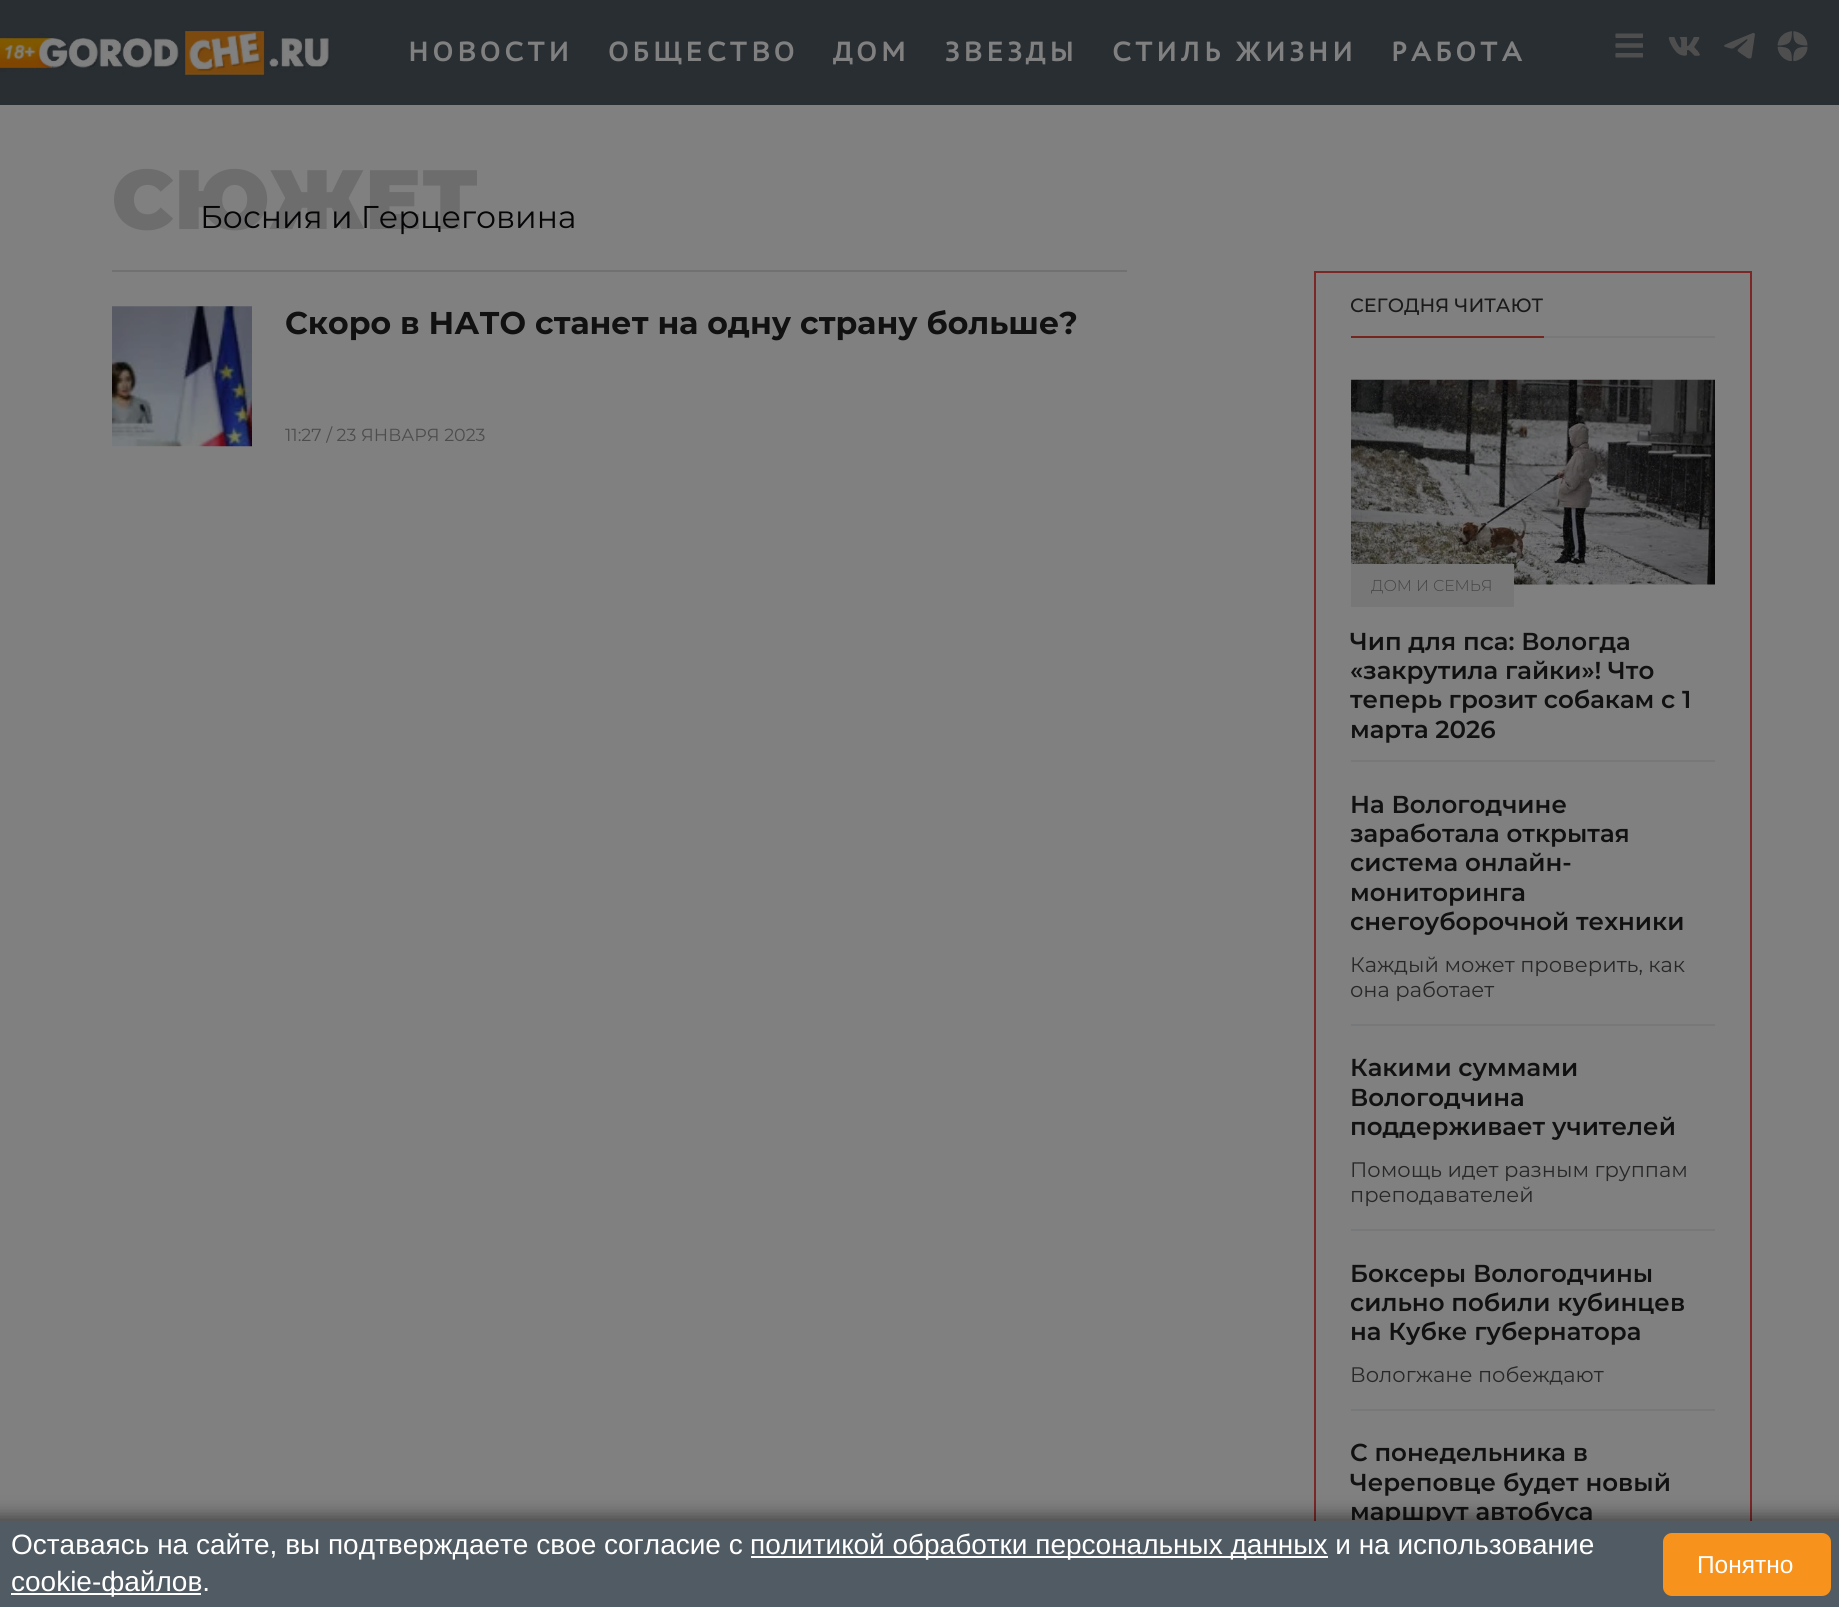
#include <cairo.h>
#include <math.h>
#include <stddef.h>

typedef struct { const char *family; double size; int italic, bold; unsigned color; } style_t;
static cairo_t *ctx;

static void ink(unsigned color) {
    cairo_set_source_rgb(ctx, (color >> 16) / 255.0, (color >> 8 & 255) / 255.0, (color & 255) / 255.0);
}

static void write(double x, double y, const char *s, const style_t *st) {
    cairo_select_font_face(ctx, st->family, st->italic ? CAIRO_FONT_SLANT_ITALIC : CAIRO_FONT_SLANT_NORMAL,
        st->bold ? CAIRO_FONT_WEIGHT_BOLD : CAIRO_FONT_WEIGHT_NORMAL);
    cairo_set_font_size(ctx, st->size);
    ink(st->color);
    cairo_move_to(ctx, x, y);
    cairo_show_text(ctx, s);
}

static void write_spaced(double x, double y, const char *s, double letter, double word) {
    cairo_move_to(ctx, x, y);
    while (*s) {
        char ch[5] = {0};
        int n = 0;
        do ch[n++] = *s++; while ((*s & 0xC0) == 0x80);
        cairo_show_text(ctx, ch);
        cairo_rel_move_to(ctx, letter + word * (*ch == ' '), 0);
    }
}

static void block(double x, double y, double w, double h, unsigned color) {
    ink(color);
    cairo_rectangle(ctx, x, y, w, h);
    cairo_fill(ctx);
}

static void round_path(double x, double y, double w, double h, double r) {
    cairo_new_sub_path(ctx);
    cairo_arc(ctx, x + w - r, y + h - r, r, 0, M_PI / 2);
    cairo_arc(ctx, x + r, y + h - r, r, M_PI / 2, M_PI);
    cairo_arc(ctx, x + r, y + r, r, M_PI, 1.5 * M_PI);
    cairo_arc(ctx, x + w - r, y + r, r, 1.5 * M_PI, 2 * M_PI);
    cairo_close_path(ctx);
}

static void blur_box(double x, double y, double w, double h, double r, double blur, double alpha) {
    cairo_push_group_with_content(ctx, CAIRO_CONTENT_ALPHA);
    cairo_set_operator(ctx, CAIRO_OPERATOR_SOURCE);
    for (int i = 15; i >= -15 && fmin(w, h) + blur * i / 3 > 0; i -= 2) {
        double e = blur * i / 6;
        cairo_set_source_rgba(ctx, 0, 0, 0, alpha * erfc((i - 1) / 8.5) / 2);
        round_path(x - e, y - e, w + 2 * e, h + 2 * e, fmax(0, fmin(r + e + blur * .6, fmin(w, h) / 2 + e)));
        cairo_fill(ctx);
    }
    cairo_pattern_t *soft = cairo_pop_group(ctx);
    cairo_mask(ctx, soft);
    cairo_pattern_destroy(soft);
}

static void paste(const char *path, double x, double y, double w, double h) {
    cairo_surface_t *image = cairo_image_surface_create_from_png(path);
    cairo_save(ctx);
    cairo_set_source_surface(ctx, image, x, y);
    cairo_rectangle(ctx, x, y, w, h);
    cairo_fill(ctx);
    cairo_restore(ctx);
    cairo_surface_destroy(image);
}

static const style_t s1 = {"Montserrat Black", 84, 0, 0, 0x6d6d6d};
static const style_t s2 = {"Montserrat", 31.5, 0, 0, 0x050508};
static const style_t s3 = {"Montserrat", 31.5, 0, 1, 0x111111};
static const style_t s4 = {"Montserrat", 17.5, 0, 0, 0x4d4d4d};
static const style_t s5 = {"Montserrat Medium", 19.25, 0, 0, 0x1a1a1a};
static const style_t s6 = {"Montserrat Light", 15.75, 0, 0, 0x444444};
static const style_t s7 = {"Montserrat SemiBold", 24.5, 0, 0, 0x111111};
static const style_t s8 = {"Montserrat", 21, 0, 0, 0x282828};
static const style_t s9 = {"Liberation Sans", 28, 0, 0, 0xffffff};
static const style_t s10 = {"Liberation Sans", 24.5, 0, 0, 0xffffff};

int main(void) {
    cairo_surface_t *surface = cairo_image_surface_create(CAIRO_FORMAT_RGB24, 1839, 1607);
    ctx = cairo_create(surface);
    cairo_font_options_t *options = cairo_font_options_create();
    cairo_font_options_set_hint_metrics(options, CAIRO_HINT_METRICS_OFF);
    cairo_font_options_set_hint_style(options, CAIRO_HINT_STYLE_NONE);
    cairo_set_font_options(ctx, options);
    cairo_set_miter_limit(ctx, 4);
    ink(0x808080);
    cairo_paint(ctx);
    block(0, 0, 1839, 105, 0x292e32);
    paste("pic1.png", 0, 30, 330, 46);
    cairo_select_font_face(ctx, "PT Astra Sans", CAIRO_FONT_SLANT_NORMAL, CAIRO_FONT_WEIGHT_BOLD);
    cairo_set_font_size(ctx, 28);
    ink(0x808080);
    write_spaced(408, 61, "НОВОСТИ", 4.25, 0);
    write_spaced(608, 61, "ОБЩЕСТВО", 4.25, 0);
    write_spaced(833, 61, "ДОМ", 4.25, 0);
    write_spaced(945, 61, "ЗВЕЗДЫ", 4.25, 0);
    write_spaced(1112, 61, "СТИЛЬ ЖИЗНИ", 4.25, 0);
    write_spaced(1391, 61, "РАБОТА", 4.25, 0);
    paste("pic2.png", 1615, 33, 28, 25);
    paste("pic3.png", 1668, 37, 32, 19);
    paste("pic4.png", 1724, 33, 31, 26);
    paste("pic5.png", 1777, 31, 31, 30);
    write(112, 229, "СЮЖЕТ", &s1);
    write(200, 228, "Босния и Герцеговина", &s2);
    block(112, 270, 1015, 2, 0x717171);
    paste("pic6.png", 112, 306, 140, 141);
    write(285, 334, "Скоро в НАТО станет на одну страну больше?", &s3);
    write(285, 441, "11:27 / 23 ЯНВАРЯ 2023", &s4);
    cairo_rectangle(ctx, 1315, 272, 436, 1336);
    ink(0x7b2726);
    cairo_stroke(ctx);
    block(1544, 336, 171, 2, 0x767879);
    block(1351, 336, 193, 2, 0x74261e);
    write(1350, 312, "СЕГОДНЯ ЧИТАЮТ", &s5);
    block(1351, 760, 364, 2, 0x767879);
    paste("pic7.png", 1351, 379, 364, 206);
    block(1351, 564, 163, 43, 0x777777);
    write(1371, 591, "ДОМ И СЕМЬЯ", &s6);
    write(1350, 650, "Чип для пса: Вологда", &s7);
    write(1350, 679, "«закрутила гайки»! Что", &s7);
    write(1350, 708, "теперь грозит собакам с 1", &s7);
    write(1350, 738, "марта 2026", &s7);
    block(1351, 1024, 364, 2, 0x767879);
    write(1350, 813, "На Вологодчине", &s7);
    write(1350, 842, "заработала открытая", &s7);
    write(1350, 871, "система онлайн-", &s7);
    write(1350, 901, "мониторинга", &s7);
    write(1350, 930, "снегоуборочной техники", &s7);
    write(1350, 972, "Каждый может проверить, как", &s8);
    write(1350, 997, "она работает", &s8);
    block(1351, 1229, 364, 2, 0x767879);
    write(1350, 1076, "Какими суммами", &s7);
    write(1350, 1106, "Вологодчина", &s7);
    write(1350, 1135, "поддерживает учителей", &s7);
    write(1350, 1177, "Помощь идет разным группам", &s8);
    write(1350, 1202, "преподавателей", &s8);
    block(1351, 1409, 364, 2, 0x767879);
    write(1350, 1282, "Боксеры Вологодчины", &s7);
    write(1350, 1311, "сильно побили кубинцев", &s7);
    write(1350, 1340, "на Кубке губернатора", &s7);
    write(1350, 1382, "Вологжане побеждают", &s8);
    write(1350, 1461, "С понедельника в", &s7);
    write(1350, 1491, "Череповце будет новый", &s7);
    write(1350, 1520, "маршрут автобуса", &s7);
    ink(0x000000);
    blur_box(-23, 1517, 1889, 88, 18, 9, 0.5);
    block(0, 1521, 1839, 86, 0x515b63);
    write(11, 1554, "Оставаясь на сайте, вы подтверждаете свое согласие с", &s9);
    block(751, 1556, 577, 2, 0xffffff);
    write(750, 1554, "политикой обработки персональных данных и на использование", &s9);
    block(11, 1593, 190, 2, 0xffffff);
    write(11, 1591, "cookie-файлов.", &s9);
    ink(0xf7931d);
    round_path(1663, 1533, 168, 63, 9);
    cairo_fill(ctx);
    write(1697, 1573, "Понятно", &s10);
    cairo_surface_write_to_png(surface, "screenshot.png");
    cairo_font_options_destroy(options);
    cairo_destroy(ctx);
    cairo_surface_destroy(surface);
    return 0;
}
